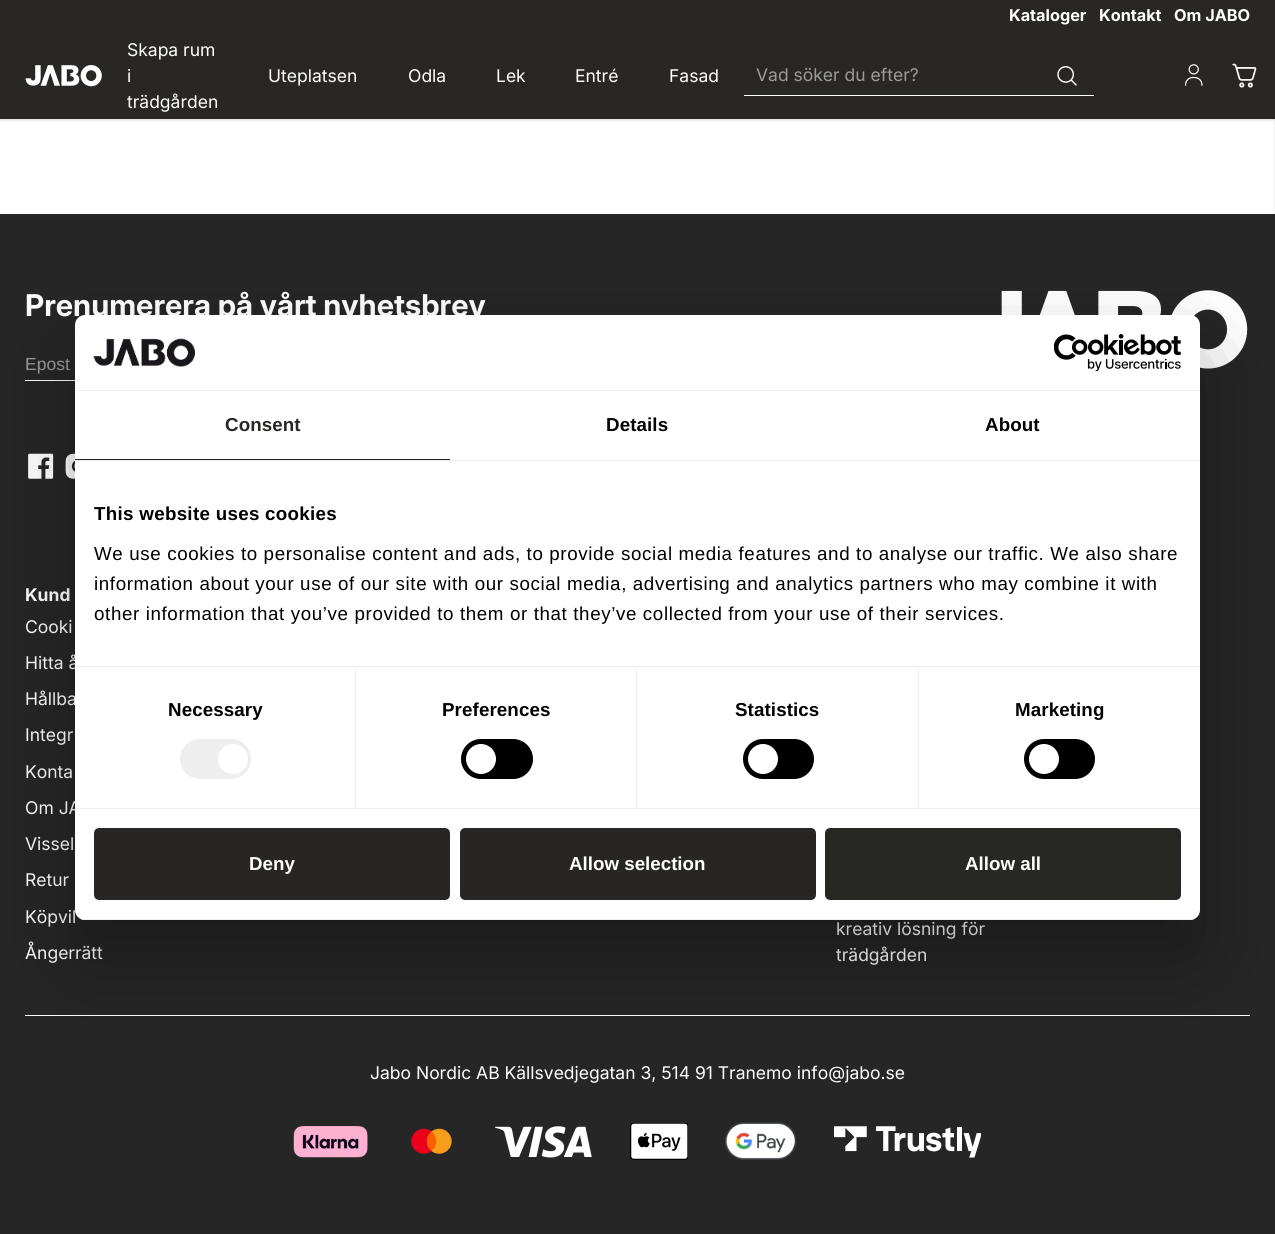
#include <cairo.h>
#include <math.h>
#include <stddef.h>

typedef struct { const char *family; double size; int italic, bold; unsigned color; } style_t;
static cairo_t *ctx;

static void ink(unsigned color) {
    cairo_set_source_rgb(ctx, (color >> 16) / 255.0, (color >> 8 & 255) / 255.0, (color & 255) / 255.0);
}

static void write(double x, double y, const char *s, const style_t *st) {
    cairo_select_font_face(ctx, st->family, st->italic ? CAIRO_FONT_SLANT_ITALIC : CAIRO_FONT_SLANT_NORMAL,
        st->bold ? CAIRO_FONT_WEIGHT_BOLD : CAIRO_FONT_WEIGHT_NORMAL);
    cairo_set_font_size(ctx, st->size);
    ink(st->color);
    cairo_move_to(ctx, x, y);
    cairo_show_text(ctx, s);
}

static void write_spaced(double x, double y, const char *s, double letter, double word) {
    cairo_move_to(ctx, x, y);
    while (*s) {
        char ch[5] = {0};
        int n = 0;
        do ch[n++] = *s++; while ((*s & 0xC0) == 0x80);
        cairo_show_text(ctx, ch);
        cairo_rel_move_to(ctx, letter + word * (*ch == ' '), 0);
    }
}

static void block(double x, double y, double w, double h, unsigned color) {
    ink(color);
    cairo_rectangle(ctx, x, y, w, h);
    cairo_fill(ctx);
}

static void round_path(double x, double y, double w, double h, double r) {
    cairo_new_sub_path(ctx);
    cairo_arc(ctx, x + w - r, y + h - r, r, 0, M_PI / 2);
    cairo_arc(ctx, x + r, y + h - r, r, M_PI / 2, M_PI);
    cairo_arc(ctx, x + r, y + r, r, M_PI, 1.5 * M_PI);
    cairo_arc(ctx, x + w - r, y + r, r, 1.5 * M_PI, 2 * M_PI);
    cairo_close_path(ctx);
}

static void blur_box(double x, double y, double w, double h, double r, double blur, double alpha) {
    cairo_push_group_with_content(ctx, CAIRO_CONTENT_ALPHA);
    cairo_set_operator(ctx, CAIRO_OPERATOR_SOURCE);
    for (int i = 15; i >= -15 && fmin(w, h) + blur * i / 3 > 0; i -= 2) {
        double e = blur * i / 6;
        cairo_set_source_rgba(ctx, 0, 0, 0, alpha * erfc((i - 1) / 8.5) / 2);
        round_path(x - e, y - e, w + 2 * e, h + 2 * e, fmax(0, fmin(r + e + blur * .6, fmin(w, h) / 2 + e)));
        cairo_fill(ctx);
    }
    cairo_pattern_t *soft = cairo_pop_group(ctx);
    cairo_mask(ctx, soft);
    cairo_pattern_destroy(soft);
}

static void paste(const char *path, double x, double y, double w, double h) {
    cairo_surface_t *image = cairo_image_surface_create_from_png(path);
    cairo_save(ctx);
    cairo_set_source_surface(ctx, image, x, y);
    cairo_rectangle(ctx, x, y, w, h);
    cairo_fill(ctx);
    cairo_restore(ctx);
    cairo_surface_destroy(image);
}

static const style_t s1 = {"Inter", 16.25, 0, 1, 0xffffff};
static const style_t s2 = {"Inter", 17.5, 0, 0, 0xffffff};
static const style_t s3 = {"Inter", 17.5, 0, 0, 0x9b9b9b};
static const style_t s4 = {"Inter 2", 30, 0, 1, 0xffffff};
static const style_t s5 = {"Liberation Sans", 17.5, 0, 0, 0x9b9b9b};
static const style_t s6 = {"Inter", 17.5, 0, 1, 0xffffff};
static const style_t s7 = {"Liberation Sans", 18.75, 0, 1, 0xffffff};

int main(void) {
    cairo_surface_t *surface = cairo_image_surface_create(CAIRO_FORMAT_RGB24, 1275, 1234);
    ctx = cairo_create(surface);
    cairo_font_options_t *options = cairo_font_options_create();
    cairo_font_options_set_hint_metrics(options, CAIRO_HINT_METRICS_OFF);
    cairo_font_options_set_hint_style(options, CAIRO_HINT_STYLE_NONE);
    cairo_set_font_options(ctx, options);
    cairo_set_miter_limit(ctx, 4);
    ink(0xffffff);
    cairo_paint(ctx);
    ink(0x000000);
    blur_box(0, 1, 1275, 119, 0, 1, 0.06);
    blur_box(0, 1, 1275, 119, 0, 2, 0.1);
    block(0, 0, 1275, 119, 0x282725);
    write(1009, 21, "Kataloger", &s1);
    write(1099, 21, "Kontakt", &s1);
    write(1174, 21, "Om JABO", &s1);
    paste("pic1.png", 25, 65, 77, 22);
    write(127, 56, "Skapa rum", &s2);
    write(127, 82, "i", &s2);
    write(127, 108, "trädgården", &s2);
    write(268, 82, "Uteplatsen", &s2);
    write(408, 82, "Odla", &s2);
    write(496, 82, "Lek", &s2);
    write(575, 82, "Entré", &s2);
    write(669, 82, "Fasad", &s2);
    block(744, 95, 350, 1, 0xffffff);
    write(756, 81, "Vad söker du efter?", &s3);
    paste("pic2.png", 1057, 66, 20, 20);
    paste("pic3.png", 1184, 64, 19, 22);
    paste("pic4.png", 1232, 63, 25, 25);
    block(0, 214, 1275, 1020, 0x262626);
    ink(0x000000);
    blur_box(1275, 120, 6, 988, 0, 2, 0.1);
    write(25, 316, "Prenumerera på vårt nyhetsbrev", &s4);
    block(25, 380, 50, 1, 0xffffff);
    write(25, 370, "Epost", &s5);
    paste("pic5.png", 1001, 290, 247, 79);
    paste("pic6.png", 28, 453, 26, 26);
    paste("pic7.png", 65, 453, 10, 26);
    write(25, 601, "Kund", &s6);
    write(25, 633, "Cooki", &s2);
    write(25, 669, "Hitta å", &s2);
    write(25, 705, "Hållba", &s2);
    write(25, 741, "Integr", &s2);
    write(25, 778, "Konta", &s2);
    write(25, 814, "Om JA", &s2);
    write(25, 850, "Vissel", &s2);
    write(25, 886, "Retur", &s2);
    write(25, 923, "Köpvil", &s2);
    write(25, 959, "Ångerrätt", &s2);
    write(836, 935, "kreativ lösning för", &s2);
    write(836, 961, "trädgården", &s2);
    block(25, 1015, 1225, 1, 0xffffff);
    write(370, 1079, "Jabo Nordic AB Källsvedjegatan 3, 514 91 Tranemo info@jabo.se", &s2);
    paste("pic8.png", 293, 1126, 75, 32);
    paste("pic9.png", 411, 1128, 41, 26);
    paste("pic10.png", 495, 1126, 97, 32);
    paste("pic11.png", 630, 1123, 58, 37);
    paste("pic12.png", 725, 1122, 72, 38);
    paste("pic13.png", 834, 1126, 147, 32);
    ink(0x000000);
    blur_box(75, 355, 1125, 605, 10, 42.5, 0.3);
    ink(0xffffff);
    round_path(75, 315, 1125, 605, 10);
    cairo_fill(ctx);
    block(75, 390, 1125, 1, 0xeeeeee);
    paste("pic14.png", 93, 338, 102, 29);
    paste("pic15.png", 1054, 334, 127, 37);
    block(75, 460, 1125, 1, 0xeeeeee);
    block(75, 459, 375, 1, 0x272624);
    cairo_select_font_face(ctx, "Liberation Sans", CAIRO_FONT_SLANT_NORMAL, CAIRO_FONT_WEIGHT_BOLD);
    cairo_set_font_size(ctx, 18.75);
    write_spaced(225, 431, "Consent", 0.1, 0);
    ink(0x000000);
    write_spaced(606, 431, "Details", 0.1, 0);
    write_spaced(985, 431, "About", 0.1, 0);
    block(75, 666, 1125, 1, 0xeeeeee);
    ink(0x000000);
    write_spaced(94, 520, "This website uses cookies", 0.3, 0);
    cairo_select_font_face(ctx, "Liberation Sans", CAIRO_FONT_SLANT_NORMAL, CAIRO_FONT_WEIGHT_NORMAL);
    write_spaced(94, 560, "We use cookies to personalise content and ads, to provide social media features and to analyse our traffic. We also share", 0.62, 0);
    write_spaced(94, 590, "information about your use of our site with our social media, advertising and analytics partners who may combine it with", 0.62, 0);
    write_spaced(94, 620, "other information that you’ve provided to them or that they’ve collected from your use of their services.", 0.62, 0);
    block(75, 808, 1125, 1, 0xeeeeee);
    block(355, 668, 1, 140, 0xeeeeee);
    cairo_select_font_face(ctx, "Liberation Sans", CAIRO_FONT_SLANT_NORMAL, CAIRO_FONT_WEIGHT_BOLD);
    ink(0x000000);
    write_spaced(168, 716, "Necessary", 0.1, 0);
    ink(0xeeeeee);
    round_path(180, 739, 71, 40, 20);
    cairo_fill(ctx);
    ink(0xffffff);
    cairo_arc(ctx, 233, 759, 15, 0, 2 * M_PI);
    cairo_fill(ctx);
    block(636, 668, 1, 140, 0xeeeeee);
    ink(0x000000);
    write_spaced(442, 716, "Preferences", 0.1, 0);
    round_path(461, 739, 72, 40, 20);
    cairo_fill(ctx);
    ink(0xffffff);
    cairo_arc(ctx, 481, 759, 15, 0, 2 * M_PI);
    cairo_fill(ctx);
    block(918, 668, 1, 140, 0xeeeeee);
    ink(0x000000);
    write_spaced(735, 716, "Statistics", 0.1, 0);
    round_path(743, 739, 71, 40, 20);
    cairo_fill(ctx);
    ink(0xffffff);
    cairo_arc(ctx, 763, 759, 15, 0, 2 * M_PI);
    cairo_fill(ctx);
    ink(0x000000);
    write_spaced(1015, 716, "Marketing", 0.1, 0);
    round_path(1024, 739, 71, 40, 20);
    cairo_fill(ctx);
    ink(0xffffff);
    cairo_arc(ctx, 1044, 759, 15, 0, 2 * M_PI);
    cairo_fill(ctx);
    cairo_save(ctx);
    round_path(75, 315, 1125, 605, 10);
    cairo_clip(ctx);
    block(75, 919, 1125, 1, 0xeeeeee);
    cairo_restore(ctx);
    ink(0x272624);
    round_path(95.5, 829.5, 353, 69, 3.5);
    cairo_fill_preserve(ctx);
    cairo_set_line_width(ctx, 3);
    cairo_stroke(ctx);
    write(249, 870, "Deny", &s7);
    ink(0x272624);
    round_path(461.5, 829.5, 353, 69, 3.5);
    cairo_fill_preserve(ctx);
    cairo_stroke(ctx);
    write(569, 870, "Allow selection", &s7);
    ink(0x272724);
    round_path(826.5, 829.5, 353, 69, 3.5);
    cairo_fill_preserve(ctx);
    ink(0x272624);
    cairo_stroke(ctx);
    write(965, 870, "Allow all", &s7);
    cairo_surface_write_to_png(surface, "screenshot.png");
    cairo_font_options_destroy(options);
    cairo_destroy(ctx);
    cairo_surface_destroy(surface);
    return 0;
}
